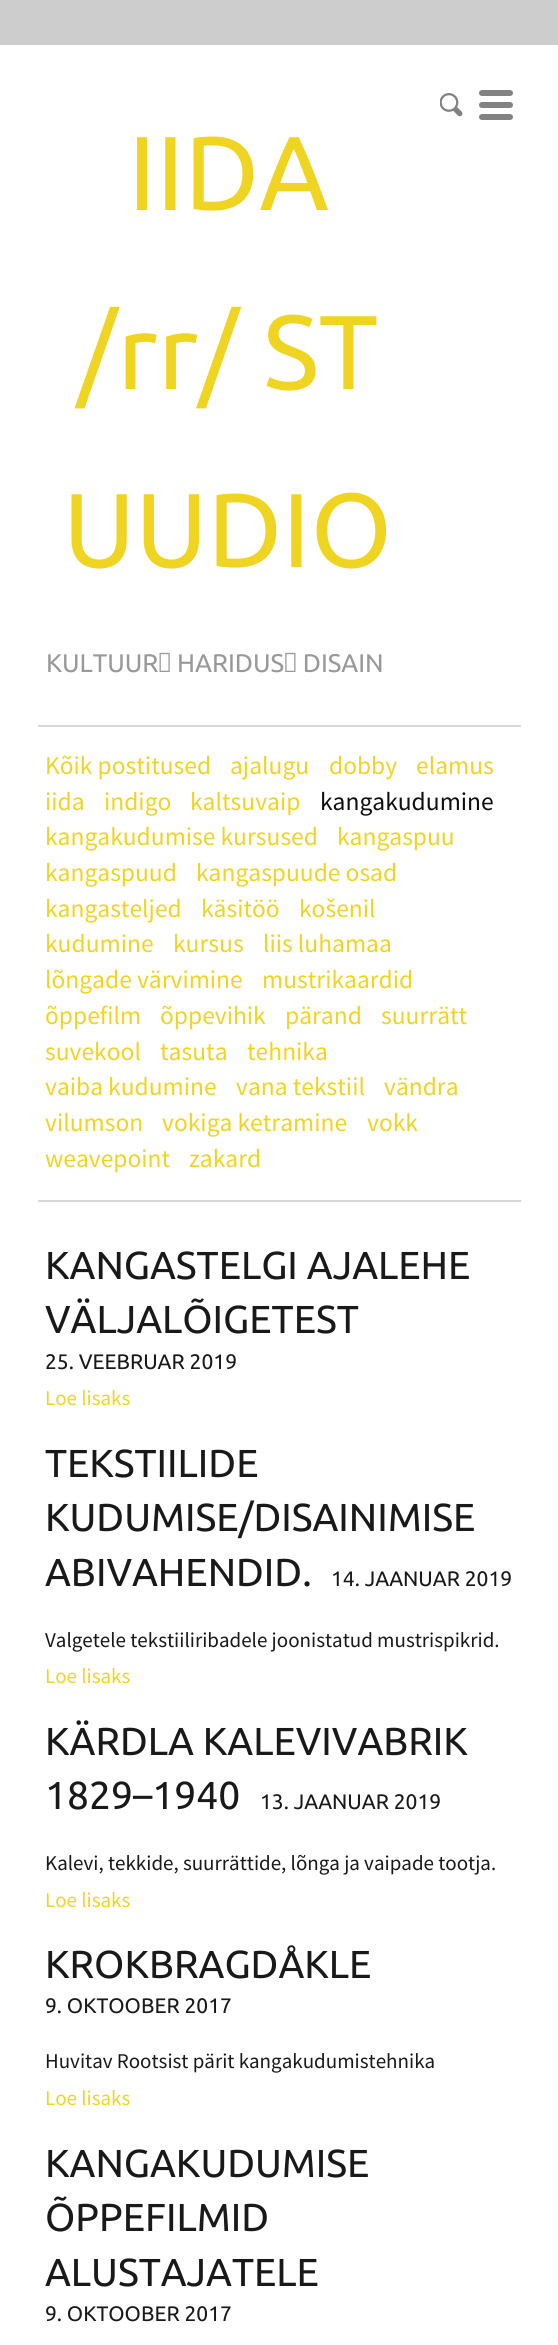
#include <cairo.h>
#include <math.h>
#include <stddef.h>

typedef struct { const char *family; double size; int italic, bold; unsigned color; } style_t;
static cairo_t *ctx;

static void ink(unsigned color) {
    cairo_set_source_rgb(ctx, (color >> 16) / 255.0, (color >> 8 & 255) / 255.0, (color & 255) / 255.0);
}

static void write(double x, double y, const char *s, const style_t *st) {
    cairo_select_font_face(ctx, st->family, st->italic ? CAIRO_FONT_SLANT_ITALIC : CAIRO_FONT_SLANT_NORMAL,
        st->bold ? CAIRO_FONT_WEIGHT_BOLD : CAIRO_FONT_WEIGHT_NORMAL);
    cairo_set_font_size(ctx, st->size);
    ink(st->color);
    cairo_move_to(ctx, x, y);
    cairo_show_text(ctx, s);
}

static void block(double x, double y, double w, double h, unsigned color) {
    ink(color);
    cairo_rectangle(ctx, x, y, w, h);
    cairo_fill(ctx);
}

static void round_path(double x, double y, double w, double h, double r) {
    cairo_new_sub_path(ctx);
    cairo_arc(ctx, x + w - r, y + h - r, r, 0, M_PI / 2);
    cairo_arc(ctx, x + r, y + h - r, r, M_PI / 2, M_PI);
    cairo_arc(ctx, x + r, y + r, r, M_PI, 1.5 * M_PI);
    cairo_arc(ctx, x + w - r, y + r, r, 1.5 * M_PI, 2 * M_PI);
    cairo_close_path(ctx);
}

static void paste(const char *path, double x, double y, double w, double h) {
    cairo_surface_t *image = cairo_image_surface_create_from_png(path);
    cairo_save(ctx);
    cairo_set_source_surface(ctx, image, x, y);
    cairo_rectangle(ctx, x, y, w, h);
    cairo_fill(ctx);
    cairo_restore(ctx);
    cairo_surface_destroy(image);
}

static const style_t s1 = {"Ubuntu", 105, 0, 0, 0xf0d422};
static const style_t s2 = {"Ubuntu", 25.5, 0, 0, 0x999999};
static const style_t s3 = {"Source Sans Pro", 25.5, 0, 0, 0xf0d422};
static const style_t s4 = {"Source Sans Pro", 25.5, 0, 0, 0x0f0f0f};
static const style_t s5 = {"Ubuntu", 39, 0, 0, 0x191919};
static const style_t s6 = {"Ubuntu", 21, 0, 0, 0x191919};
static const style_t s7 = {"Source Sans Pro", 21, 0, 0, 0xf0d422};
static const style_t s8 = {"Source Sans Pro", 21, 0, 0, 0x191919};

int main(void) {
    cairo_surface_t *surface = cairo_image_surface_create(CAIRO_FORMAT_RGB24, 558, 2345);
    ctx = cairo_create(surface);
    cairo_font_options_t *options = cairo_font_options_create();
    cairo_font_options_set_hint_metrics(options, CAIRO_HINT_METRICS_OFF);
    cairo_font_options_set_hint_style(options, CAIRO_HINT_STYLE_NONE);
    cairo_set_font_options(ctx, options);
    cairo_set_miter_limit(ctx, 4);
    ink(0xcdcdcd);
    cairo_paint(ctx);
    block(0, 45, 558, 2300, 0xffffff);
    block(38, 725, 483, 2, 0xd8d8d8);
    paste("pic1.png", 440, 93, 23, 24);
    ink(0x828282);
    round_path(479, 90, 34, 6, 3);
    cairo_fill(ctx);
    round_path(479, 102, 34, 6, 3);
    cairo_fill(ctx);
    round_path(479, 114, 34, 6, 3);
    cairo_fill(ctx);
    write(128, 210, "IIDA", &s1);
    write(77, 389, "/rr/ ST", &s1);
    write(63, 567, "UUDIO", &s1);
    write(46, 672, "KULTUUR  HARIDUS  DISAIN", &s2);
    block(38, 1200, 483, 2, 0xd8d8d8);
    write(45, 774, "Kõik postitused", &s3);
    write(230, 774, "ajalugu", &s3);
    write(329, 774, "dobby", &s3);
    write(416, 774, "elamus", &s3);
    write(45, 810, "iida", &s3);
    write(104, 810, "indigo", &s3);
    write(190, 810, "kaltsuvaip", &s3);
    write(320, 810, "kangakudumine", &s4);
    write(45, 845, "kangakudumise kursused", &s3);
    write(337, 845, "kangaspuu", &s3);
    write(45, 881, "kangaspuud", &s3);
    write(196, 881, "kangaspuude osad", &s3);
    write(45, 917, "kangasteljed", &s3);
    write(201, 917, "käsitöö", &s3);
    write(299, 917, "košenil", &s3);
    write(45, 952, "kudumine", &s3);
    write(173, 952, "kursus", &s3);
    write(263, 952, "liis luhamaa", &s3);
    write(45, 988, "lõngade värvimine", &s3);
    write(262, 988, "mustrikaardid", &s3);
    write(45, 1024, "õppefilm", &s3);
    write(160, 1024, "õppevihik", &s3);
    write(285, 1024, "pärand", &s3);
    write(381, 1024, "suurrätt", &s3);
    write(45, 1060, "suvekool", &s3);
    write(160, 1060, "tasuta", &s3);
    write(247, 1060, "tehnika", &s3);
    write(45, 1095, "vaiba kudumine", &s3);
    write(236, 1095, "vana tekstiil", &s3);
    write(384, 1095, "vändra", &s3);
    write(45, 1131, "vilumson", &s3);
    write(162, 1131, "vokiga ketramine", &s3);
    write(367, 1131, "vokk", &s3);
    write(45, 1167, "weavepoint", &s3);
    write(189, 1167, "zakard", &s3);
    write(45, 1279, "KANGASTELGI AJALEHE", &s5);
    write(45, 1333, "VÄLJALÕIGETEST", &s5);
    write(45, 1369, "25. VEEBRUAR 2019", &s6);
    write(45, 1405, "Loe lisaks", &s7);
    write(45, 1477, "TEKSTIILIDE", &s5);
    write(45, 1531, "KUDUMISE/DISAINIMISE", &s5);
    write(45, 1586, "ABIVAHENDID.", &s5);
    write(331, 1586, "14. JAANUAR 2019", &s6);
    write(45, 1647, "Valgetele tekstiiliribadele joonistatud mustrispikrid.", &s8);
    write(45, 1683, "Loe lisaks", &s7);
    write(45, 1755, "KÄRDLA KALEVIVABRIK", &s5);
    write(45, 1809, "1829–1940", &s5);
    write(260, 1809, "13. JAANUAR 2019", &s6);
    write(45, 1870, "Kalevi, tekkide, suurrättide, lõnga ja vaipade tootja.", &s8);
    write(45, 1907, "Loe lisaks", &s7);
    write(45, 1978, "KROKBRAGDÅKLE", &s5);
    write(45, 2013, "9. OKTOOBER 2017", &s6);
    write(45, 2068, "Huvitav Rootsist pärit kangakudumistehnika", &s8);
    write(45, 2105, "Loe lisaks", &s7);
    write(45, 2177, "KANGAKUDUMISE", &s5);
    write(45, 2231, "ÕPPEFILMID", &s5);
    write(45, 2286, "ALUSTAJATELE", &s5);
    write(45, 2321, "9. OKTOOBER 2017", &s6);
    cairo_surface_write_to_png(surface, "screenshot.png");
    cairo_font_options_destroy(options);
    cairo_destroy(ctx);
    cairo_surface_destroy(surface);
    return 0;
}
